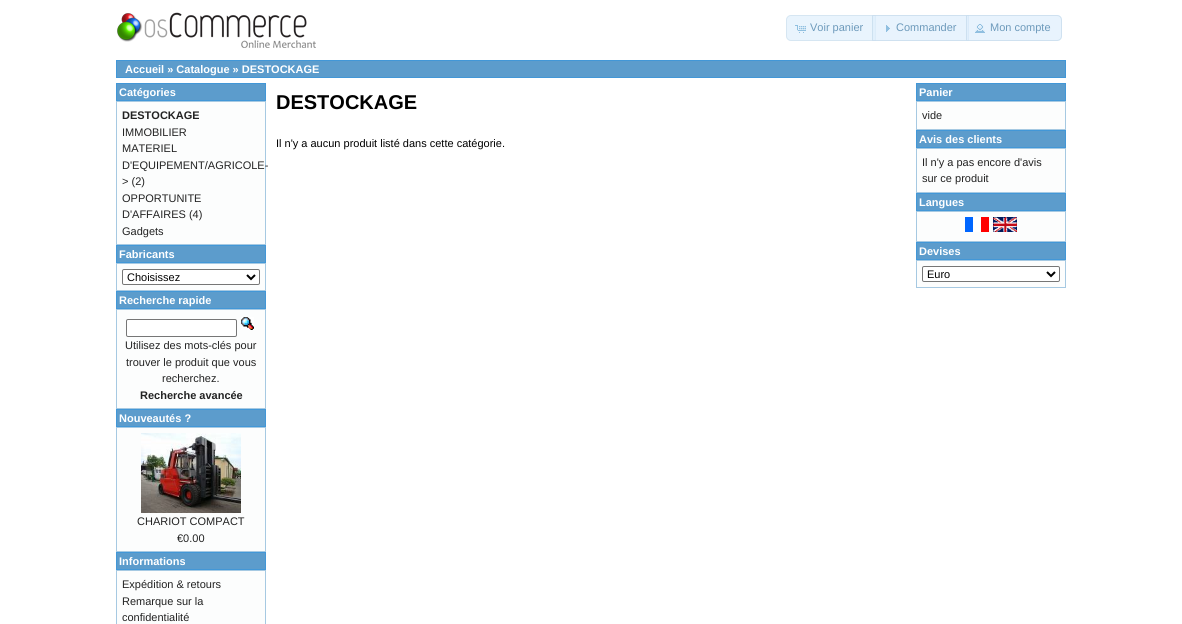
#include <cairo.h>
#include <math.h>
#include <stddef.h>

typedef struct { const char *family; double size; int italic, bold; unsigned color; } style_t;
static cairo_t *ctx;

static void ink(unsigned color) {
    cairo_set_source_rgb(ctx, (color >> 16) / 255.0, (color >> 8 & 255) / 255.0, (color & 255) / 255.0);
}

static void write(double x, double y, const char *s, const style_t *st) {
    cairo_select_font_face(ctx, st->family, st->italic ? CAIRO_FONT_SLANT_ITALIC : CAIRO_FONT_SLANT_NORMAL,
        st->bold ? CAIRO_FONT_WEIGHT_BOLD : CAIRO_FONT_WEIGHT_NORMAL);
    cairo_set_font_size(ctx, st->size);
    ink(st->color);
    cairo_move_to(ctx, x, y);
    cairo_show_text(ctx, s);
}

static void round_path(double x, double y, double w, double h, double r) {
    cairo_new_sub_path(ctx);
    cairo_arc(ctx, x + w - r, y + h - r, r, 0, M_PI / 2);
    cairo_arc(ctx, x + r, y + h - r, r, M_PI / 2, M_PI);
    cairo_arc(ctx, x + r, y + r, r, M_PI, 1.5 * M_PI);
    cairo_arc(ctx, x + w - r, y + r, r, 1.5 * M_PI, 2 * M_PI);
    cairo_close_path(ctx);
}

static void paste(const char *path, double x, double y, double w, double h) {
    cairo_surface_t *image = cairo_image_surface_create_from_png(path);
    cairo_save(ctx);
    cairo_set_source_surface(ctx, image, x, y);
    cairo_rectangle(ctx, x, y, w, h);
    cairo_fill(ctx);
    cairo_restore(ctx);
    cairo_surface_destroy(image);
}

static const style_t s1 = {"Liberation Sans", 11, 0, 0, 0x6d9abb};
static const style_t s2 = {"Liberation Sans", 11, 0, 1, 0xffffff};
static const style_t s3 = {"Liberation Sans", 11, 0, 1, 0x222222};
static const style_t s4 = {"Liberation Sans", 11, 0, 0, 0x222222};
static const style_t s5 = {"Liberation Sans", 11, 0, 0, 0x000000};
static const style_t s6 = {"Liberation Sans", 20, 0, 1, 0x000000};

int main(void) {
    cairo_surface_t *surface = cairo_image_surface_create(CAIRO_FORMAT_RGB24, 1182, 624);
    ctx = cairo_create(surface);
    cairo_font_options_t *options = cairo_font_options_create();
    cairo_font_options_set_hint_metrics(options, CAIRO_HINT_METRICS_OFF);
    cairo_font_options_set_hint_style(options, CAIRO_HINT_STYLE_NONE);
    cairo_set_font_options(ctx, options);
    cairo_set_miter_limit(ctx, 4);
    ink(0xffffff);
    cairo_paint(ctx);
    paste("pic1.png", 117, 12, 199, 36);
    ink(0xe9f4fd);
    cairo_new_path(ctx);
    cairo_move_to(ctx, 791, 15.5);
    cairo_line_to(ctx, 875.5, 15.5);
    cairo_line_to(ctx, 875.5, 40.5);
    cairo_line_to(ctx, 791, 40.5);
    cairo_curve_to(ctx, 788.5, 40.5, 786.5, 38.5, 786.5, 36);
    cairo_line_to(ctx, 786.5, 20);
    cairo_curve_to(ctx, 786.5, 17.5, 788.5, 15.5, 791, 15.5);
    cairo_close_path(ctx);
    cairo_fill_preserve(ctx);
    ink(0xd6e6f2);
    cairo_set_line_width(ctx, 1);
    cairo_stroke(ctx);
    paste("pic2.png", 795, 25, 11, 8);
    write(810, 31, "Voir panier", &s1);
    cairo_set_source_rgba(ctx, 0.875, 0.937, 0.988, 0.7);
    cairo_rectangle(ctx, 872, 15, 97, 26);
    cairo_fill(ctx);
    cairo_rectangle(ctx, 872.5, 15.5, 96, 25);
    cairo_set_source_rgba(ctx, 0.773, 0.859, 0.925, 0.7);
    cairo_stroke(ctx);
    paste("pic3.png", 886, 25, 4, 7);
    write(896, 31, "Commander", &s1);
    cairo_set_source_rgba(ctx, 0.875, 0.937, 0.988, 0.7);
    cairo_new_path(ctx);
    cairo_move_to(ctx, 966, 15);
    cairo_line_to(ctx, 1057, 15);
    cairo_curve_to(ctx, 1060, 15, 1062, 17, 1062, 20);
    cairo_line_to(ctx, 1062, 36);
    cairo_curve_to(ctx, 1062, 39, 1060, 41, 1057, 41);
    cairo_line_to(ctx, 966, 41);
    cairo_close_path(ctx);
    cairo_fill(ctx);
    cairo_new_path(ctx);
    cairo_move_to(ctx, 966.5, 15.5);
    cairo_line_to(ctx, 1057, 15.5);
    cairo_curve_to(ctx, 1059.5, 15.5, 1061.5, 17.5, 1061.5, 20);
    cairo_line_to(ctx, 1061.5, 36);
    cairo_curve_to(ctx, 1061.5, 38.5, 1059.5, 40.5, 1057, 40.5);
    cairo_line_to(ctx, 966.5, 40.5);
    cairo_close_path(ctx);
    cairo_set_source_rgba(ctx, 0.773, 0.859, 0.925, 0.7);
    cairo_stroke(ctx);
    paste("pic4.png", 975, 24, 10, 9);
    write(990, 31, "Mon compte", &s1);
    ink(0x5c9ccc);
    cairo_rectangle(ctx, 116.5, 60.5, 949, 17);
    cairo_fill_preserve(ctx);
    ink(0x4297d7);
    cairo_stroke(ctx);
    write(125, 73, "Accueil » Catalogue » DESTOCKAGE", &s2);
    ink(0x5c9ccc);
    cairo_rectangle(ctx, 116.5, 83.5, 149, 17);
    cairo_fill_preserve(ctx);
    ink(0x4297d7);
    cairo_stroke(ctx);
    write(119, 96, "Catégories", &s2);
    ink(0xfcfdfd);
    cairo_rectangle(ctx, 116.5, 101.5, 149, 143);
    cairo_fill_preserve(ctx);
    ink(0xa6c9e2);
    cairo_stroke(ctx);
    write(122, 119, "DESTOCKAGE", &s3);
    write(122, 136, "IMMOBILIER", &s4);
    write(122, 152, "MATERIEL", &s4);
    write(122, 169, "D'EQUIPEMENT/AGRICOLE-", &s4);
    write(122, 185, "> (2)", &s4);
    write(122, 202, "OPPORTUNITE", &s4);
    write(122, 218, "D'AFFAIRES (4)", &s4);
    write(122, 235, "Gadgets", &s4);
    ink(0x5c9ccc);
    cairo_rectangle(ctx, 116.5, 245.5, 149, 17);
    cairo_fill_preserve(ctx);
    ink(0x4297d7);
    cairo_stroke(ctx);
    write(119, 258, "Fabricants", &s2);
    ink(0xfcfdfd);
    cairo_rectangle(ctx, 116.5, 263.5, 149, 27);
    cairo_fill_preserve(ctx);
    ink(0xa6c9e2);
    cairo_stroke(ctx);
    ink(0xffffff);
    round_path(122.5, 269.5, 137, 15, 1.5);
    cairo_fill_preserve(ctx);
    ink(0x767676);
    cairo_stroke(ctx);
    cairo_new_path(ctx);
    cairo_move_to(ctx, 247, 275);
    cairo_line_to(ctx, 251, 279);
    cairo_line_to(ctx, 255, 275);
    ink(0x000000);
    cairo_set_line_width(ctx, 2);
    cairo_stroke(ctx);
    write(127, 281, "Choisissez", &s5);
    ink(0x5c9ccc);
    cairo_rectangle(ctx, 116.5, 291.5, 149, 17);
    cairo_fill_preserve(ctx);
    ink(0x4297d7);
    cairo_set_line_width(ctx, 1);
    cairo_stroke(ctx);
    write(119, 304, "Recherche rapide", &s2);
    ink(0xfcfdfd);
    cairo_rectangle(ctx, 116.5, 309.5, 149, 99);
    cairo_fill_preserve(ctx);
    ink(0xa6c9e2);
    cairo_stroke(ctx);
    ink(0xffffff);
    round_path(126.5, 319.5, 110, 17, 1.5);
    cairo_fill_preserve(ctx);
    ink(0x767676);
    cairo_stroke(ctx);
    paste("pic5.png", 241, 317, 13, 13);
    write(125, 349, "Utilisez des mots-clés pour", &s4);
    write(126, 366, "trouver le produit que vous", &s4);
    write(162, 382, "recherchez.", &s4);
    write(140, 399, "Recherche avancée", &s3);
    ink(0x5c9ccc);
    cairo_rectangle(ctx, 116.5, 409.5, 149, 17);
    cairo_fill_preserve(ctx);
    ink(0x4297d7);
    cairo_stroke(ctx);
    write(119, 422, "Nouveautés ?", &s2);
    ink(0xfcfdfd);
    cairo_rectangle(ctx, 116.5, 427.5, 149, 124);
    cairo_fill_preserve(ctx);
    ink(0xa6c9e2);
    cairo_stroke(ctx);
    paste("pic6.png", 141, 433, 100, 80);
    write(137, 525, "CHARIOT COMPACT", &s4);
    write(177, 542, "€0.00", &s4);
    ink(0x5c9ccc);
    cairo_rectangle(ctx, 116.5, 552.5, 149, 17);
    cairo_fill_preserve(ctx);
    ink(0x4297d7);
    cairo_stroke(ctx);
    write(119, 565, "Informations", &s2);
    ink(0xfcfdfd);
    cairo_rectangle(ctx, 116.5, 570.5, 149, 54);
    cairo_fill_preserve(ctx);
    ink(0xa6c9e2);
    cairo_stroke(ctx);
    write(122, 588, "Expédition & retours", &s4);
    write(122, 605, "Remarque sur la", &s4);
    write(122, 621, "confidentialité", &s4);
    write(276, 109, "DESTOCKAGE", &s6);
    write(276, 147, "Il n'y a aucun produit listé dans cette catégorie.", &s5);
    ink(0x5c9ccc);
    cairo_rectangle(ctx, 916.5, 83.5, 149, 17);
    cairo_fill_preserve(ctx);
    ink(0x4297d7);
    cairo_stroke(ctx);
    write(919, 96, "Panier", &s2);
    ink(0xfcfdfd);
    cairo_rectangle(ctx, 916.5, 101.5, 149, 28);
    cairo_fill_preserve(ctx);
    ink(0xa6c9e2);
    cairo_stroke(ctx);
    write(922, 119, "vide", &s4);
    ink(0x5c9ccc);
    cairo_rectangle(ctx, 916.5, 130.5, 149, 17);
    cairo_fill_preserve(ctx);
    ink(0x4297d7);
    cairo_stroke(ctx);
    write(919, 143, "Avis des clients", &s2);
    ink(0xfcfdfd);
    cairo_rectangle(ctx, 916.5, 148.5, 149, 44);
    cairo_fill_preserve(ctx);
    ink(0xa6c9e2);
    cairo_stroke(ctx);
    write(922, 166, "Il n'y a pas encore d'avis", &s4);
    write(922, 182, "sur ce produit", &s4);
    ink(0x5c9ccc);
    cairo_rectangle(ctx, 916.5, 193.5, 149, 17);
    cairo_fill_preserve(ctx);
    ink(0x4297d7);
    cairo_stroke(ctx);
    write(919, 206, "Langues", &s2);
    ink(0xfcfdfd);
    cairo_rectangle(ctx, 916.5, 211.5, 149, 30);
    cairo_fill_preserve(ctx);
    ink(0xa6c9e2);
    cairo_stroke(ctx);
    paste("pic7.png", 965, 217, 24, 15);
    paste("pic8.png", 993, 217, 24, 15);
    ink(0x5c9ccc);
    cairo_rectangle(ctx, 916.5, 242.5, 149, 17);
    cairo_fill_preserve(ctx);
    ink(0x4297d7);
    cairo_stroke(ctx);
    write(919, 255, "Devises", &s2);
    ink(0xfcfdfd);
    cairo_rectangle(ctx, 916.5, 260.5, 149, 27);
    cairo_fill_preserve(ctx);
    ink(0xa6c9e2);
    cairo_stroke(ctx);
    ink(0xffffff);
    round_path(922.5, 266.5, 137, 15, 1.5);
    cairo_fill_preserve(ctx);
    ink(0x767676);
    cairo_stroke(ctx);
    cairo_new_path(ctx);
    cairo_move_to(ctx, 1047, 272);
    cairo_line_to(ctx, 1051, 276);
    cairo_line_to(ctx, 1055, 272);
    ink(0x000000);
    cairo_set_line_width(ctx, 2);
    cairo_stroke(ctx);
    write(927, 278, "Euro", &s5);
    cairo_surface_write_to_png(surface, "screenshot.png");
    cairo_font_options_destroy(options);
    cairo_destroy(ctx);
    cairo_surface_destroy(surface);
    return 0;
}
